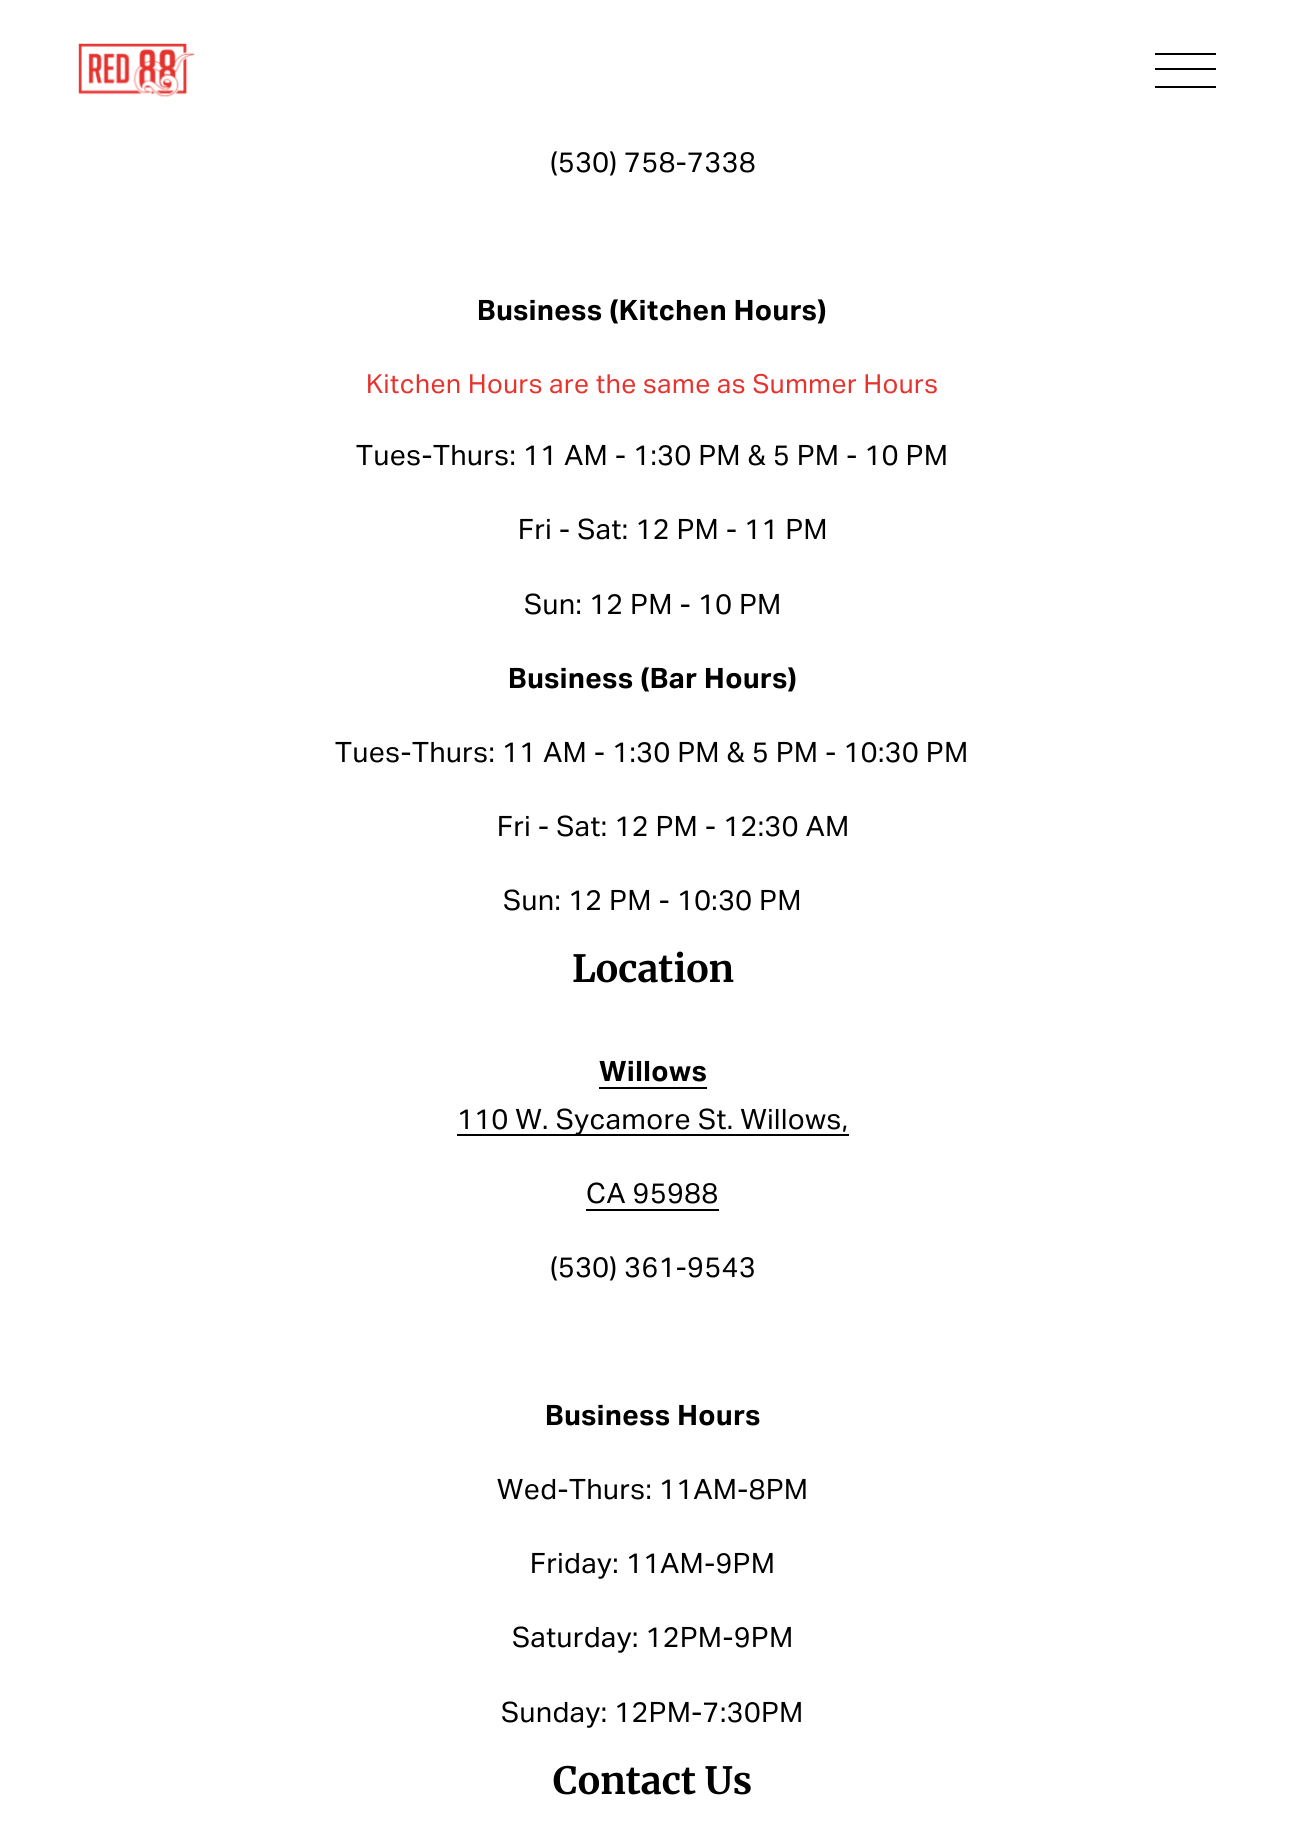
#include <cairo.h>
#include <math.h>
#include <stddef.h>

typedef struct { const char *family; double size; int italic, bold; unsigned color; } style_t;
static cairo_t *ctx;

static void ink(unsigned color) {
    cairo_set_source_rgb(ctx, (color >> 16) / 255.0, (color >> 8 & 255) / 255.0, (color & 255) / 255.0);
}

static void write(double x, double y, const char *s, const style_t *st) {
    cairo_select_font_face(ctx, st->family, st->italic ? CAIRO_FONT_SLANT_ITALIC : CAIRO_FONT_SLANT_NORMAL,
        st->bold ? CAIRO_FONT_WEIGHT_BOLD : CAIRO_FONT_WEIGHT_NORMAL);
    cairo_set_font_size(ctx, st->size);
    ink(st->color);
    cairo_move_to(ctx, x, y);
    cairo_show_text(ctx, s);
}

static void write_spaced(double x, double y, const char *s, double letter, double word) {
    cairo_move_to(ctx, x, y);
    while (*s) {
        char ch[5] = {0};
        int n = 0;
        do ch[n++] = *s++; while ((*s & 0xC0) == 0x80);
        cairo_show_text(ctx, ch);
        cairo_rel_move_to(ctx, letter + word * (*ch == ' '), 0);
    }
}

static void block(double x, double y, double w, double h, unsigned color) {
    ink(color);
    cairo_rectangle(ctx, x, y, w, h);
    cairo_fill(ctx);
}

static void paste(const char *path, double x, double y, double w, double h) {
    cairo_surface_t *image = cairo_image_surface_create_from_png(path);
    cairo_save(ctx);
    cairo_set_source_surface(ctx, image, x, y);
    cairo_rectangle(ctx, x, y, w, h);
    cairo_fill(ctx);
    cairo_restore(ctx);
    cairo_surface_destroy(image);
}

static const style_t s1 = {"Merriweather", 37.5, 0, 1, 0x000000};

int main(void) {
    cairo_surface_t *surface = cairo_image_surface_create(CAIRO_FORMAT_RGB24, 1305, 1844);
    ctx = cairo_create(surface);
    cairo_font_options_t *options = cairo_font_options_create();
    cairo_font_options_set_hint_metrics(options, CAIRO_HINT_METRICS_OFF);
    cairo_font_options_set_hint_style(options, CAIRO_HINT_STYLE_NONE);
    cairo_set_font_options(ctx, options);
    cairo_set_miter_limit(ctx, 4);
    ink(0xffffff);
    cairo_paint(ctx);
    paste("pic1.png", 78, 43, 117, 54);
    block(1155, 53, 61, 2, 0x000000);
    block(1155, 68, 61, 2, 0x000000);
    block(1155, 86, 61, 2, 0x000000);
    cairo_select_font_face(ctx, "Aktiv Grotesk", CAIRO_FONT_SLANT_NORMAL, CAIRO_FONT_WEIGHT_NORMAL);
    cairo_set_font_size(ctx, 28.1);
    write_spaced(550, 172, "(530) 758-7338", 0.55, 0);
    cairo_select_font_face(ctx, "Aktiv Grotesk", CAIRO_FONT_SLANT_NORMAL, CAIRO_FONT_WEIGHT_BOLD);
    write_spaced(477, 320, "Business (Kitchen Hours)", 0.55, 0);
    cairo_select_font_face(ctx, "Aktiv Grotesk", CAIRO_FONT_SLANT_NORMAL, CAIRO_FONT_WEIGHT_NORMAL);
    cairo_set_font_size(ctx, 26.25);
    ink(0xe6332e);
    write_spaced(366, 393, "Kitchen Hours are the same as Summer Hours", 0.55, 0);
    cairo_set_font_size(ctx, 28.1);
    ink(0x000000);
    write_spaced(356, 465, "Tues-Thurs: 11 AM - 1:30 PM & 5 PM - 10 PM", 0.55, 0);
    write_spaced(518, 539, "Fri - Sat: 12 PM - 11 PM", 0.55, 0);
    write_spaced(524, 614, "Sun: 12 PM - 10 PM", 0.55, 0);
    cairo_select_font_face(ctx, "Aktiv Grotesk", CAIRO_FONT_SLANT_NORMAL, CAIRO_FONT_WEIGHT_BOLD);
    write_spaced(508, 688, "Business (Bar Hours)", 0.55, 0);
    cairo_select_font_face(ctx, "Aktiv Grotesk", CAIRO_FONT_SLANT_NORMAL, CAIRO_FONT_WEIGHT_NORMAL);
    write_spaced(335, 762, "Tues-Thurs: 11 AM - 1:30 PM & 5 PM - 10:30 PM", 0.55, 0);
    write_spaced(497, 836, "Fri - Sat: 12 PM - 12:30 AM", 0.55, 0);
    write_spaced(503, 910, "Sun: 12 PM - 10:30 PM", 0.55, 0);
    write(572, 982, "Location", &s1);
    cairo_select_font_face(ctx, "Aktiv Grotesk", CAIRO_FONT_SLANT_NORMAL, CAIRO_FONT_WEIGHT_BOLD);
    cairo_set_font_size(ctx, 28.1);
    write_spaced(599, 1081, "Willows", 0.55, 0);
    block(599, 1087, 108, 2, 0x000000);
    block(457, 1134, 392, 2, 0x000000);
    cairo_select_font_face(ctx, "Aktiv Grotesk", CAIRO_FONT_SLANT_NORMAL, CAIRO_FONT_WEIGHT_NORMAL);
    write_spaced(457, 1129, "110 W. Sycamore St. Willows,", 0.55, 0);
    write_spaced(586, 1203, "CA 95988", 0.55, 0);
    block(586, 1209, 133, 2, 0x000000);
    write_spaced(550, 1277, "(530) 361-9543", 0.55, 0);
    cairo_select_font_face(ctx, "Aktiv Grotesk", CAIRO_FONT_SLANT_NORMAL, CAIRO_FONT_WEIGHT_BOLD);
    write_spaced(545, 1425, "Business Hours", 0.55, 0);
    cairo_select_font_face(ctx, "Aktiv Grotesk", CAIRO_FONT_SLANT_NORMAL, CAIRO_FONT_WEIGHT_NORMAL);
    write_spaced(497, 1499, "Wed-Thurs: 11AM-8PM", 0.55, 0);
    write_spaced(530, 1573, "Friday: 11AM-9PM", 0.55, 0);
    write_spaced(512, 1647, "Saturday: 12PM-9PM", 0.55, 0);
    write_spaced(501, 1722, "Sunday: 12PM-7:30PM", 0.55, 0);
    write(553, 1794, "Contact Us", &s1);
    cairo_surface_write_to_png(surface, "screenshot.png");
    cairo_font_options_destroy(options);
    cairo_destroy(ctx);
    cairo_surface_destroy(surface);
    return 0;
}
